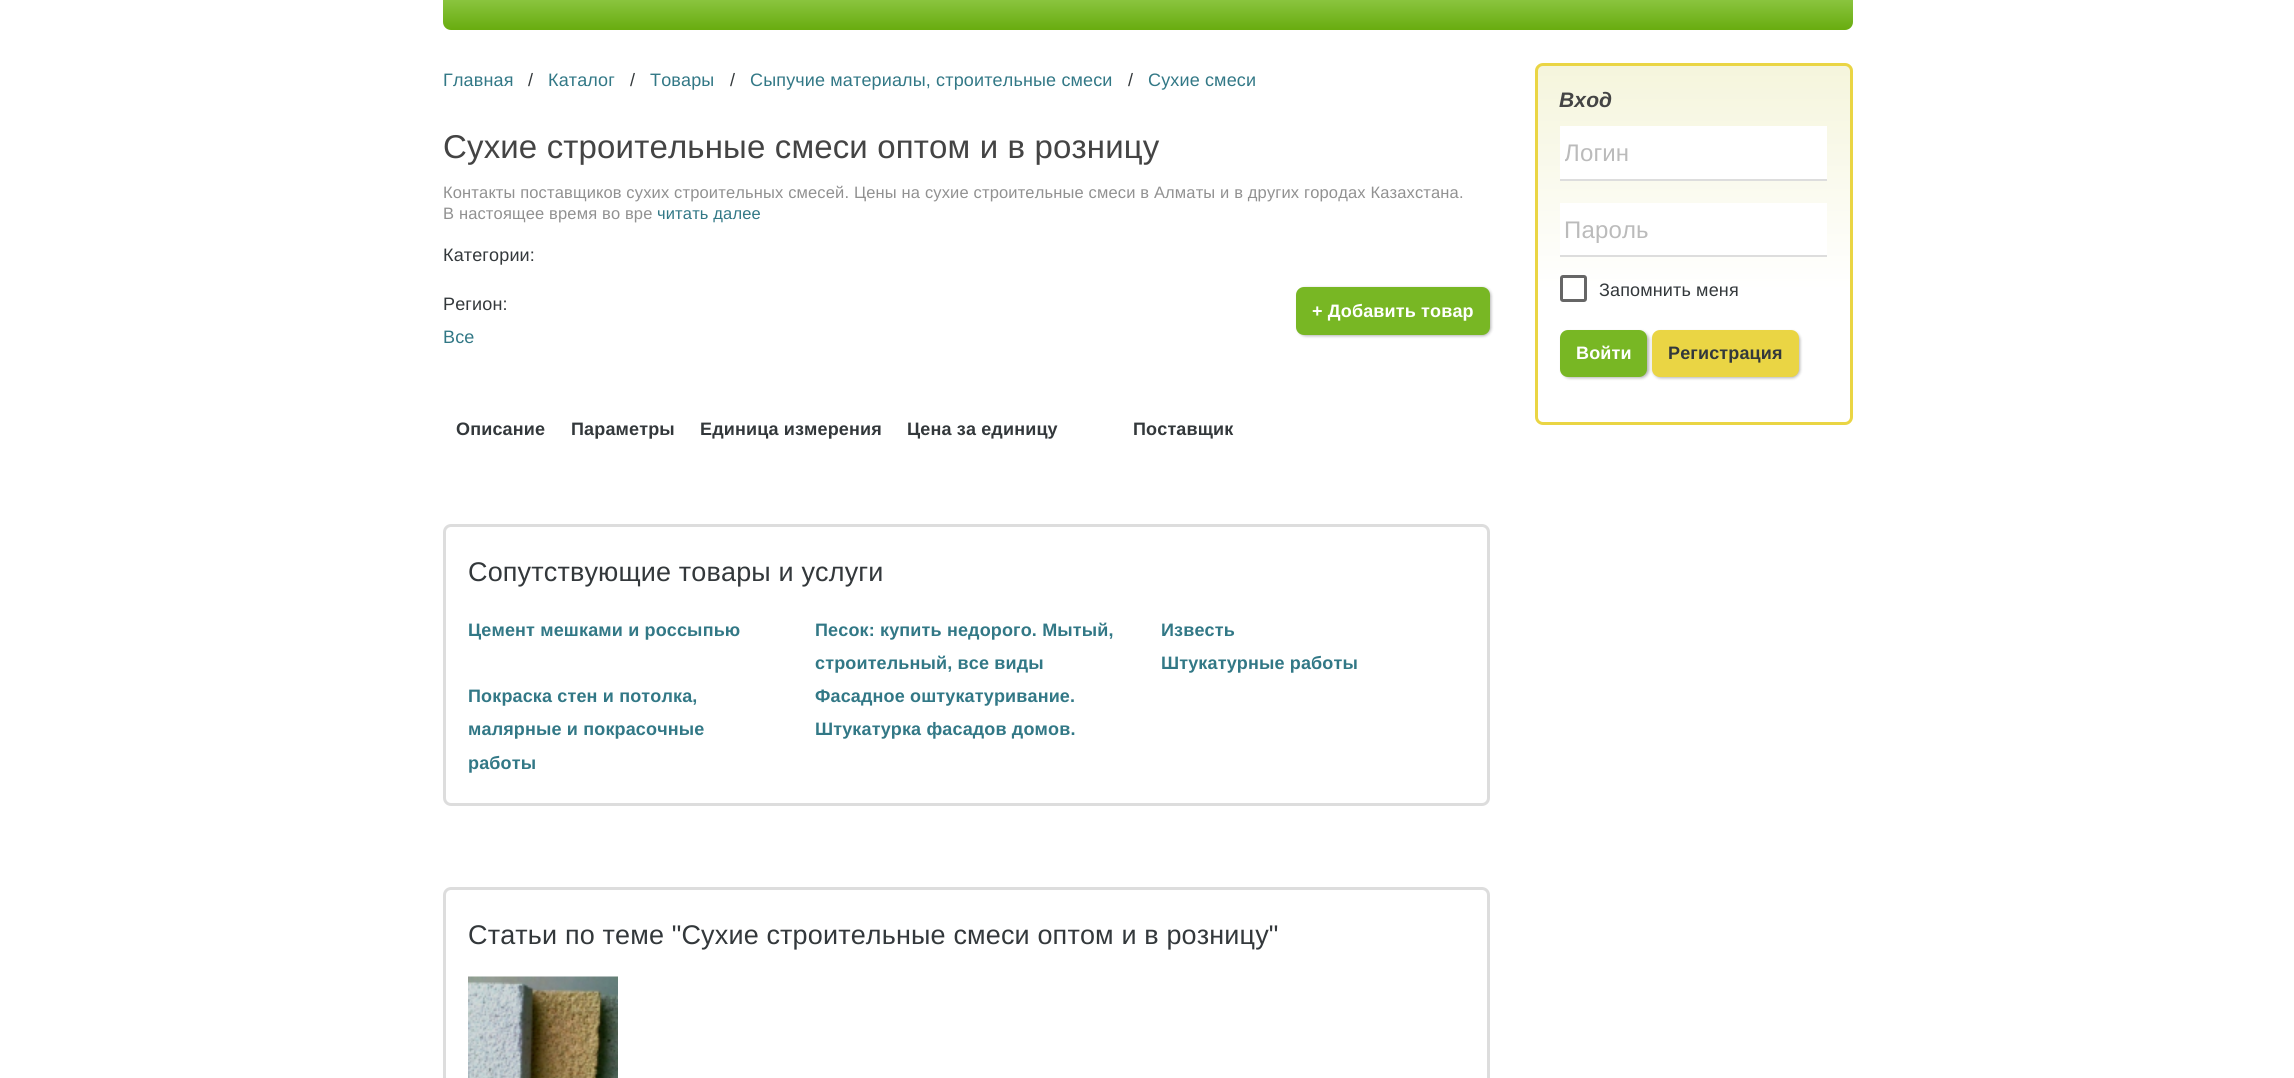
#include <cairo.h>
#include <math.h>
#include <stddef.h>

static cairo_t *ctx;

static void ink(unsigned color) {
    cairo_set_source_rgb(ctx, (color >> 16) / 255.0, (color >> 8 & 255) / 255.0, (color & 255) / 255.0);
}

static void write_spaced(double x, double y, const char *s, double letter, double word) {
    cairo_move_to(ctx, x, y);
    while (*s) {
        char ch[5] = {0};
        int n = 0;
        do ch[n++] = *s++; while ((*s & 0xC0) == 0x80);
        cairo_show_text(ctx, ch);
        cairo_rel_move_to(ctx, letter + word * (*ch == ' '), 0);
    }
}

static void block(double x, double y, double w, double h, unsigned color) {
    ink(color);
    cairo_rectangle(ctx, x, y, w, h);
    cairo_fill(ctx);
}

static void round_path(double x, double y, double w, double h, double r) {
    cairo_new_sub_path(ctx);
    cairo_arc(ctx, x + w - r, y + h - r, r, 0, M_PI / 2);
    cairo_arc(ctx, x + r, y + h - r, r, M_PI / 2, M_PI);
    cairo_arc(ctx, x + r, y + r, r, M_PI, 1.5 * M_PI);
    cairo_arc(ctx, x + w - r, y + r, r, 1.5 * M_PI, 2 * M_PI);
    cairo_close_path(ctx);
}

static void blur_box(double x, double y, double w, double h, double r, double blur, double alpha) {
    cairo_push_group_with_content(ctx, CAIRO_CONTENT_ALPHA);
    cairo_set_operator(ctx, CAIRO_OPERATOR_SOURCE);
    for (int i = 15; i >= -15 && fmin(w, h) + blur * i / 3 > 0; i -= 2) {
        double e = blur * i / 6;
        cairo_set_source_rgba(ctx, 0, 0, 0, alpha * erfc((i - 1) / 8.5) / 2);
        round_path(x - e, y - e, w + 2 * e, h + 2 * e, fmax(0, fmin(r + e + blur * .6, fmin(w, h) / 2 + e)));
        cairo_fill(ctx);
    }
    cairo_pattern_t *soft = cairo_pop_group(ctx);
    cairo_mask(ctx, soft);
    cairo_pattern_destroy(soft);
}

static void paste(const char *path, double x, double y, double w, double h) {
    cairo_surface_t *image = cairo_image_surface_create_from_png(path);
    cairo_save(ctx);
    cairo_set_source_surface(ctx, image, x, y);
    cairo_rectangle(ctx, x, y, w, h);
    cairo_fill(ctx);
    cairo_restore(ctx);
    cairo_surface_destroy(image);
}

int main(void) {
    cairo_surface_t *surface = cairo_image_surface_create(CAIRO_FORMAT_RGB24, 2294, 1078);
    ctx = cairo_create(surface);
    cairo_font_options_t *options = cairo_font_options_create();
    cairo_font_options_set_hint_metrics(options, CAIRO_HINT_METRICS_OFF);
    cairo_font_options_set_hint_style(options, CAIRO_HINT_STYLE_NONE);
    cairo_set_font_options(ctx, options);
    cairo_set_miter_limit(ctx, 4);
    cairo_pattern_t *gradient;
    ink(0xffffff);
    cairo_paint(ctx);
    gradient = cairo_pattern_create_linear(1148, -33, 1148, 30);
    cairo_pattern_add_color_stop_rgba(gradient, 0, 0.686, 0.871, 0.447, 1);
    cairo_pattern_add_color_stop_rgba(gradient, 1, 0.408, 0.675, 0.059, 1);
    cairo_set_source(ctx, gradient);
    cairo_pattern_destroy(gradient);
    round_path(443, -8, 1410, 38, 8);
    cairo_fill(ctx);
    cairo_select_font_face(ctx, "Liberation Sans", CAIRO_FONT_SLANT_NORMAL, CAIRO_FONT_WEIGHT_NORMAL);
    cairo_set_font_size(ctx, 18);
    ink(0x327886);
    write_spaced(443, 86, "Главная", 0.15, 0);
    ink(0x33383b);
    write_spaced(528, 86, "/", 0.15, 0);
    ink(0x327886);
    write_spaced(548, 86, "Каталог", 0.15, 0);
    ink(0x33383b);
    write_spaced(630, 86, "/", 0.15, 0);
    ink(0x327886);
    write_spaced(650, 86, "Товары", 0.15, 0);
    ink(0x33383b);
    write_spaced(730, 86, "/", 0.15, 0);
    ink(0x327886);
    write_spaced(750, 86, "Сыпучие материалы, строительные смеси", 0.15, 0);
    ink(0x33383b);
    write_spaced(1128, 86, "/", 0.15, 0);
    ink(0x327886);
    write_spaced(1148, 86, "Сухие смеси", 0.15, 0);
    cairo_set_font_size(ctx, 33);
    ink(0x444444);
    write_spaced(443, 158, "Сухие строительные смеси оптом и в розницу", 0.15, 0);
    cairo_set_font_size(ctx, 16.5);
    ink(0x919191);
    write_spaced(443, 198, "Контакты поставщиков сухих строительных смесей. Цены на сухие строительные смеси в Алматы и в других городах Казахстана.", 0.15, 0);
    write_spaced(443, 219, "В настоящее время во вре", 0.15, 0);
    ink(0x327886);
    write_spaced(657, 219, "читать далее", 0.15, 0);
    cairo_set_font_size(ctx, 18);
    ink(0x33383b);
    write_spaced(443, 261, "Категории:", 0.15, 0);
    write_spaced(443, 310, "Регион:", 0.15, 0);
    ink(0x327886);
    write_spaced(443, 343, "Все", 0.15, 0);
    ink(0x000000);
    blur_box(1298, 288, 193, 48, 8, 1.5, 0.3);
    ink(0x78b724);
    round_path(1296, 287, 194, 48, 8);
    cairo_fill(ctx);
    cairo_select_font_face(ctx, "Liberation Sans", CAIRO_FONT_SLANT_NORMAL, CAIRO_FONT_WEIGHT_BOLD);
    ink(0xffffff);
    write_spaced(1312, 317, "+ Добавить товар", 0.15, 0);
    ink(0x33383b);
    write_spaced(456, 435, "Описание", 0.15, 0);
    write_spaced(571, 435, "Параметры", 0.15, 0);
    write_spaced(700, 435, "Единица измерения", 0.15, 0);
    write_spaced(907, 435, "Цена за единицу", 0.15, 0);
    write_spaced(1133, 435, "Поставщик", 0.15, 0);
    round_path(444.5, 525.5, 1044, 279, 6.5);
    ink(0xdddddd);
    cairo_set_line_width(ctx, 3);
    cairo_stroke(ctx);
    cairo_select_font_face(ctx, "Liberation Sans", CAIRO_FONT_SLANT_NORMAL, CAIRO_FONT_WEIGHT_NORMAL);
    cairo_set_font_size(ctx, 27);
    ink(0x33383b);
    write_spaced(468, 581, "Сопутствующие товары и услуги", 0.15, 0);
    cairo_select_font_face(ctx, "Liberation Sans", CAIRO_FONT_SLANT_NORMAL, CAIRO_FONT_WEIGHT_BOLD);
    cairo_set_font_size(ctx, 18);
    ink(0x327886);
    write_spaced(468, 636, "Цемент мешками и россыпью", 0.15, 0);
    write_spaced(815, 636, "Песок: купить недорого. Мытый,", 0.15, 0);
    write_spaced(815, 669, "строительный, все виды", 0.15, 0);
    write_spaced(1161, 636, "Известь", 0.15, 0);
    write_spaced(1161, 669, "Штукатурные работы", 0.15, 0);
    write_spaced(468, 702, "Покраска стен и потолка,", 0.15, 0);
    write_spaced(468, 735, "малярные и покрасочные", 0.15, 0);
    write_spaced(468, 769, "работы", 0.15, 0);
    write_spaced(815, 702, "Фасадное оштукатуривание.", 0.15, 0);
    write_spaced(815, 735, "Штукатурка фасадов домов.", 0.15, 0);
    round_path(444.5, 888.5, 1044, 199, 6.5);
    ink(0xdddddd);
    cairo_stroke(ctx);
    cairo_select_font_face(ctx, "Liberation Sans", CAIRO_FONT_SLANT_NORMAL, CAIRO_FONT_WEIGHT_NORMAL);
    cairo_set_font_size(ctx, 27);
    ink(0x33383b);
    write_spaced(468, 944, "Статьи по теме \"Сухие строительные смеси оптом и в розницу\"", 0.15, 0);
    paste("pic1.png", 468, 976, 150, 102);
    cairo_save(ctx);
    round_path(1535, 63, 318, 362, 8);
    cairo_clip(ctx);
    gradient = cairo_pattern_create_linear(1694, 66, 1694, 422);
    cairo_pattern_add_color_stop_rgba(gradient, 0, 0.961, 0.961, 0.863, 1);
    cairo_pattern_add_color_stop_rgba(gradient, 0.63, 1, 1, 1, 1);
    cairo_pattern_add_color_stop_rgba(gradient, 1, 1, 1, 1, 1);
    cairo_set_source(ctx, gradient);
    cairo_pattern_destroy(gradient);
    cairo_rectangle(ctx, 1535, 66, 318, 356);
    cairo_fill(ctx);
    cairo_restore(ctx);
    round_path(1536.5, 64.5, 315, 359, 6.5);
    ink(0xead544);
    cairo_stroke(ctx);
    cairo_select_font_face(ctx, "Liberation Sans", CAIRO_FONT_SLANT_ITALIC, CAIRO_FONT_WEIGHT_BOLD);
    cairo_set_font_size(ctx, 21);
    ink(0x444444);
    write_spaced(1559, 107, "Вход", 0.15, 0);
    block(1560, 126, 267, 53, 0xffffff);
    block(1560, 179, 267, 2, 0xdddddd);
    cairo_save(ctx);
    cairo_rectangle(ctx, 1565, 140, 262, 27);
    cairo_clip(ctx);
    cairo_select_font_face(ctx, "Liberation Sans", CAIRO_FONT_SLANT_NORMAL, CAIRO_FONT_WEIGHT_NORMAL);
    cairo_set_font_size(ctx, 24);
    ink(0xbbbbbb);
    write_spaced(1564, 161, "Логин", 0.15, 0);
    cairo_restore(ctx);
    block(1560, 203, 267, 52, 0xffffff);
    block(1560, 255, 267, 2, 0xdddddd);
    cairo_select_font_face(ctx, "Liberation Sans", CAIRO_FONT_SLANT_NORMAL, CAIRO_FONT_WEIGHT_NORMAL);
    cairo_set_font_size(ctx, 24);
    ink(0xbbbbbb);
    write_spaced(1564, 238, "Пароль", 0.15, 0);
    round_path(1561.5, 276.5, 24, 24, 1.5);
    ink(0x666666);
    cairo_stroke(ctx);
    cairo_set_font_size(ctx, 18);
    ink(0x33383b);
    write_spaced(1599, 296, "Запомнить меня", 0.15, 0);
    ink(0x000000);
    blur_box(1562, 332, 87, 46, 8, 1.5, 0.3);
    ink(0x78b724);
    round_path(1560, 330, 87, 47, 8);
    cairo_fill(ctx);
    cairo_select_font_face(ctx, "Liberation Sans", CAIRO_FONT_SLANT_NORMAL, CAIRO_FONT_WEIGHT_BOLD);
    ink(0xffffff);
    write_spaced(1576, 359, "Войти", 0.15, 0);
    ink(0x000000);
    blur_box(1653, 332, 147, 46, 8, 1.5, 0.3);
    ink(0xead544);
    round_path(1652, 330, 147, 47, 8);
    cairo_fill(ctx);
    ink(0x33383b);
    write_spaced(1668, 359, "Регистрация", 0.15, 0);
    cairo_surface_write_to_png(surface, "screenshot.png");
    cairo_font_options_destroy(options);
    cairo_destroy(ctx);
    cairo_surface_destroy(surface);
    return 0;
}
